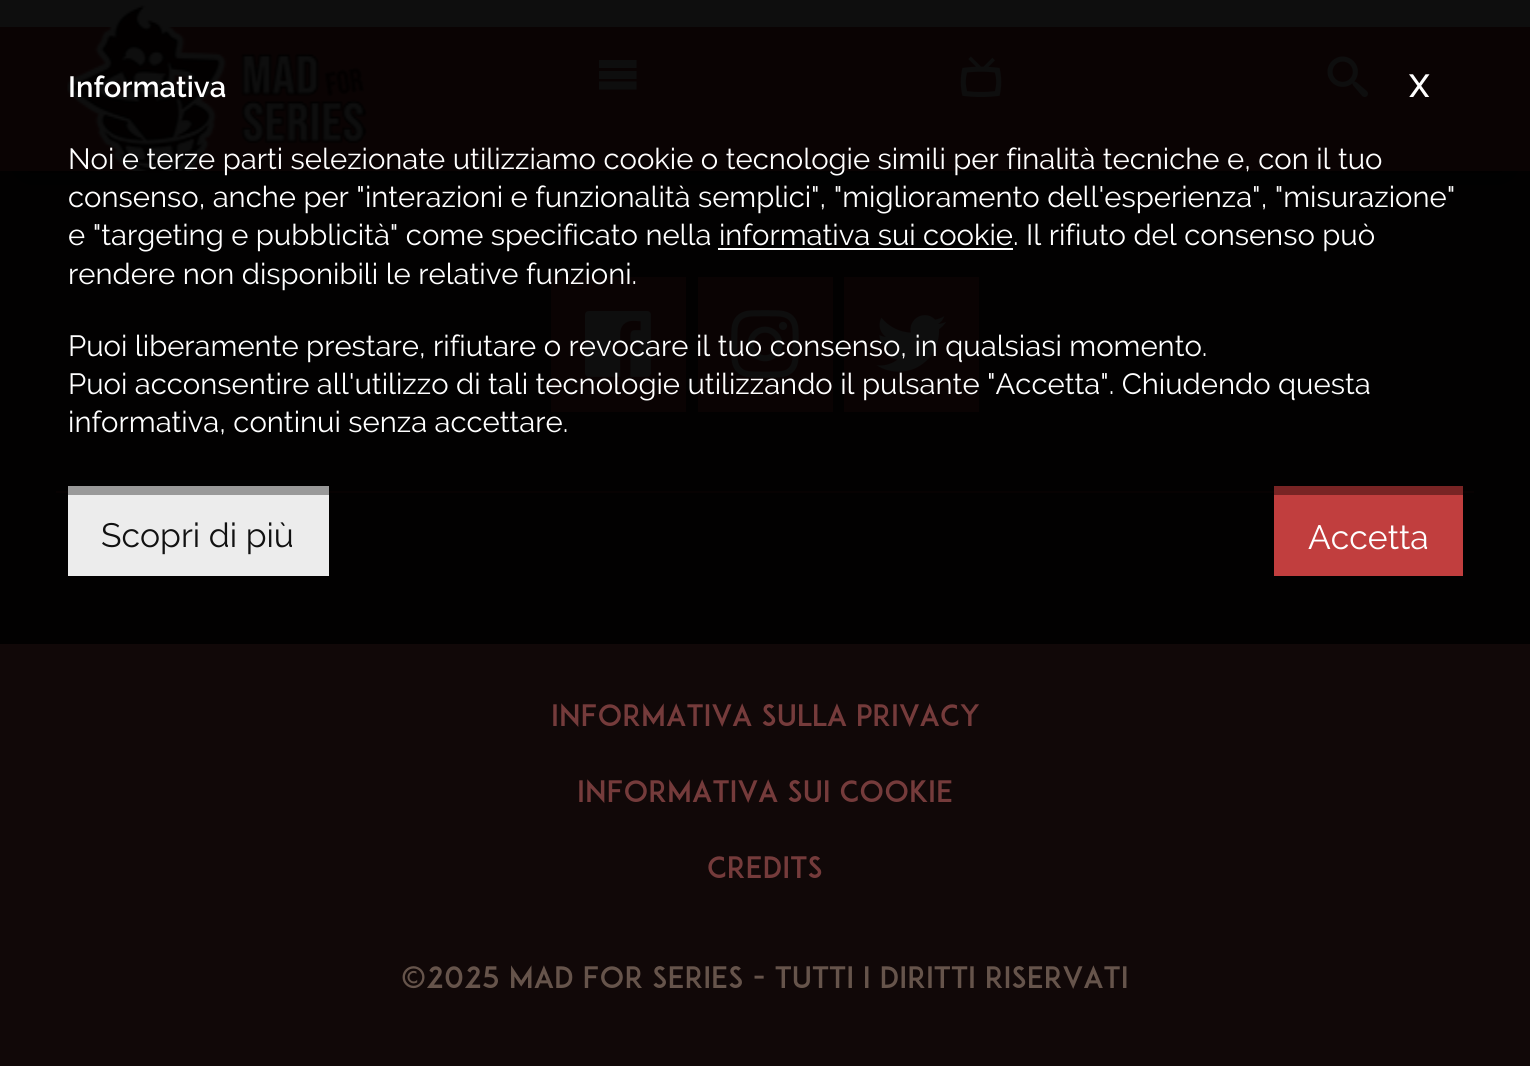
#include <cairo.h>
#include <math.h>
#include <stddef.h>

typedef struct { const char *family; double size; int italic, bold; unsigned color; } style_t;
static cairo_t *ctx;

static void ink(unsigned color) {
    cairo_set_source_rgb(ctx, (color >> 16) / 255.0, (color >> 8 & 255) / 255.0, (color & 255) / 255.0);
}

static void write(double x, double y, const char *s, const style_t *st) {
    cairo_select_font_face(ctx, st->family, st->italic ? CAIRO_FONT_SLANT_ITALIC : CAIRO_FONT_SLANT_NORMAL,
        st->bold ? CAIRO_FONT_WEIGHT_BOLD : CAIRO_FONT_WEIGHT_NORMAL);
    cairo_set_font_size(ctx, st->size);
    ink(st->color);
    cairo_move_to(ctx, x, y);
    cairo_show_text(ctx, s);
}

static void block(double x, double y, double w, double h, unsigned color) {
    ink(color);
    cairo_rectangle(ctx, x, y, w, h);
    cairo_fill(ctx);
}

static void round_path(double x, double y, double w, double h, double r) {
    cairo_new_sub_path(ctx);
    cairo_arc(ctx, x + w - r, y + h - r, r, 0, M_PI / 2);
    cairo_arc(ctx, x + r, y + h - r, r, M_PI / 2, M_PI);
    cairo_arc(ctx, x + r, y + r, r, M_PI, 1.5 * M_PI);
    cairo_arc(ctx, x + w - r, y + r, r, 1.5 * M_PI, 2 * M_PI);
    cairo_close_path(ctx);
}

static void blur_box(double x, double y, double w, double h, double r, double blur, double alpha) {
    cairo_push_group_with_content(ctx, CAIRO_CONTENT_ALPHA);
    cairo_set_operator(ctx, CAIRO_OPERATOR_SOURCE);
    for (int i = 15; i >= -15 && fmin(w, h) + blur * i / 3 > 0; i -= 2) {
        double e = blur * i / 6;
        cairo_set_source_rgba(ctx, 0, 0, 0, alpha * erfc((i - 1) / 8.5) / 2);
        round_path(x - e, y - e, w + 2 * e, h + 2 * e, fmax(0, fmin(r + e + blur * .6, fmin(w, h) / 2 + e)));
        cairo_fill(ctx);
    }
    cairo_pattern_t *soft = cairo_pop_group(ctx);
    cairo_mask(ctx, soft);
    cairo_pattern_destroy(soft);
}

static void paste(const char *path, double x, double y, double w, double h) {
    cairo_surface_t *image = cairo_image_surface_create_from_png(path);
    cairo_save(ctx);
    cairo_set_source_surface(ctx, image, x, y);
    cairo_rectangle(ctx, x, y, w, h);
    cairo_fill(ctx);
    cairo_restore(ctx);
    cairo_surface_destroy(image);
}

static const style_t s1 = {"Raleway SemiBold", 29.25, 0, 0, 0xffffff};
static const style_t s2 = {"Raleway SemiBold", 32, 0, 0, 0xffffff};
static const style_t s3 = {"Raleway", 29.25, 0, 0, 0xffffff};
static const style_t s4 = {"Raleway", 33.75, 0, 0, 0x111111};
static const style_t s5 = {"Raleway", 33.75, 0, 0, 0xffffff};
static const style_t s6 = {"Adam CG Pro", 29.25, 0, 0, 0x753b3b};
static const style_t s7 = {"Adam CG Pro", 29.25, 0, 0, 0x66544b};

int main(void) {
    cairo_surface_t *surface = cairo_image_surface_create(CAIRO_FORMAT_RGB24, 1530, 1066);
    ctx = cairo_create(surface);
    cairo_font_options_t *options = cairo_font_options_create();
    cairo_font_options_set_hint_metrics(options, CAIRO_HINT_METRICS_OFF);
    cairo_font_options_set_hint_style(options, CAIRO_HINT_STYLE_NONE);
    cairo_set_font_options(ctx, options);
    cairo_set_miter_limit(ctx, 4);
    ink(0x110808);
    cairo_paint(ctx);
    ink(0x000000);
    blur_box(27, 50, 1476, 117, 0, 12.5, 1);
    block(0, 27, 1530, 144, 0x6a2222);
    block(0, 0, 1530, 27, 0x8c8c8c);
    paste("pic1.png", 67, 5, 300, 166);
    cairo_new_path(ctx);
    cairo_move_to(ctx, 599, 60);
    cairo_line_to(ctx, 636.5, 60);
    cairo_line_to(ctx, 636.5, 68);
    cairo_line_to(ctx, 599, 68);
    cairo_close_path(ctx);
    cairo_move_to(ctx, 599, 71);
    cairo_line_to(ctx, 636.5, 71);
    cairo_line_to(ctx, 636.5, 79);
    cairo_line_to(ctx, 599, 79);
    cairo_close_path(ctx);
    cairo_move_to(ctx, 599, 81.5);
    cairo_line_to(ctx, 636.5, 81.5);
    cairo_line_to(ctx, 636.5, 89.5);
    cairo_line_to(ctx, 599, 89.5);
    cairo_close_path(ctx);
    cairo_fill(ctx);
    paste("pic2.png", 960, 56, 42, 41);
    paste("pic3.png", 1327, 56, 41, 41);
    block(551, 277, 135, 135, 0x6a2222);
    paste("pic4.png", 585, 311, 66, 66);
    block(698, 277, 135, 135, 0x6a2222);
    paste("pic5.png", 731, 310, 68, 68);
    block(844, 277, 135, 135, 0x6a2222);
    paste("pic6.png", 876, 315, 70, 57);
    block(56, 491, 1418, 2, 0x431414);
    cairo_set_source_rgba(ctx, 0, 0, 0, 0.9);
    cairo_rectangle(ctx, 0, 0, 1530, 644);
    cairo_fill(ctx);
    write(68, 97, "Informativa", &s1);
    write(1409, 97, "X", &s2);
    write(68, 169, "Noi e terze parti selezionate utilizziamo cookie o tecnologie simili per finalità tecniche e, con il tuo", &s3);
    write(68, 207, "consenso, anche per \"interazioni e funzionalità semplici\", \"miglioramento dell'esperienza\", \"misurazione\"", &s3);
    write(68, 245, "e \"targeting e pubblicità\" come specificato nella informativa sui cookie. Il rifiuto del consenso può", &s3);
    block(718, 248, 295, 2, 0xffffff);
    write(68, 284, "rendere non disponibili le relative funzioni.", &s3);
    write(68, 356, "Puoi liberamente prestare, rifiutare o revocare il tuo consenso, in qualsiasi momento.", &s3);
    write(68, 394, "Puoi acconsentire all'utilizzo di tali tecnologie utilizzando il pulsante \"Accetta\". Chiudendo questa", &s3);
    write(68, 432, "informativa, continui senza accettare.", &s3);
    block(68, 495, 261, 81, 0xececec);
    block(68, 486, 261, 9, 0x999999);
    write(101, 547, "Scopri di più", &s4);
    block(1274, 495, 189, 81, 0xc13e3e);
    block(1274, 486, 189, 9, 0x792424);
    write(1308, 549, "Accetta", &s5);
    write(551, 726, "INFORMATIVA SULLA PRIVACY", &s6);
    write(577, 802, "INFORMATIVA SUI COOKIE", &s6);
    write(707, 878, "CREDITS", &s6);
    write(401, 988, "©2025 MAD FOR SERIES - TUTTI I DIRITTI RISERVATI", &s7);
    cairo_surface_write_to_png(surface, "screenshot.png");
    cairo_font_options_destroy(options);
    cairo_destroy(ctx);
    cairo_surface_destroy(surface);
    return 0;
}
